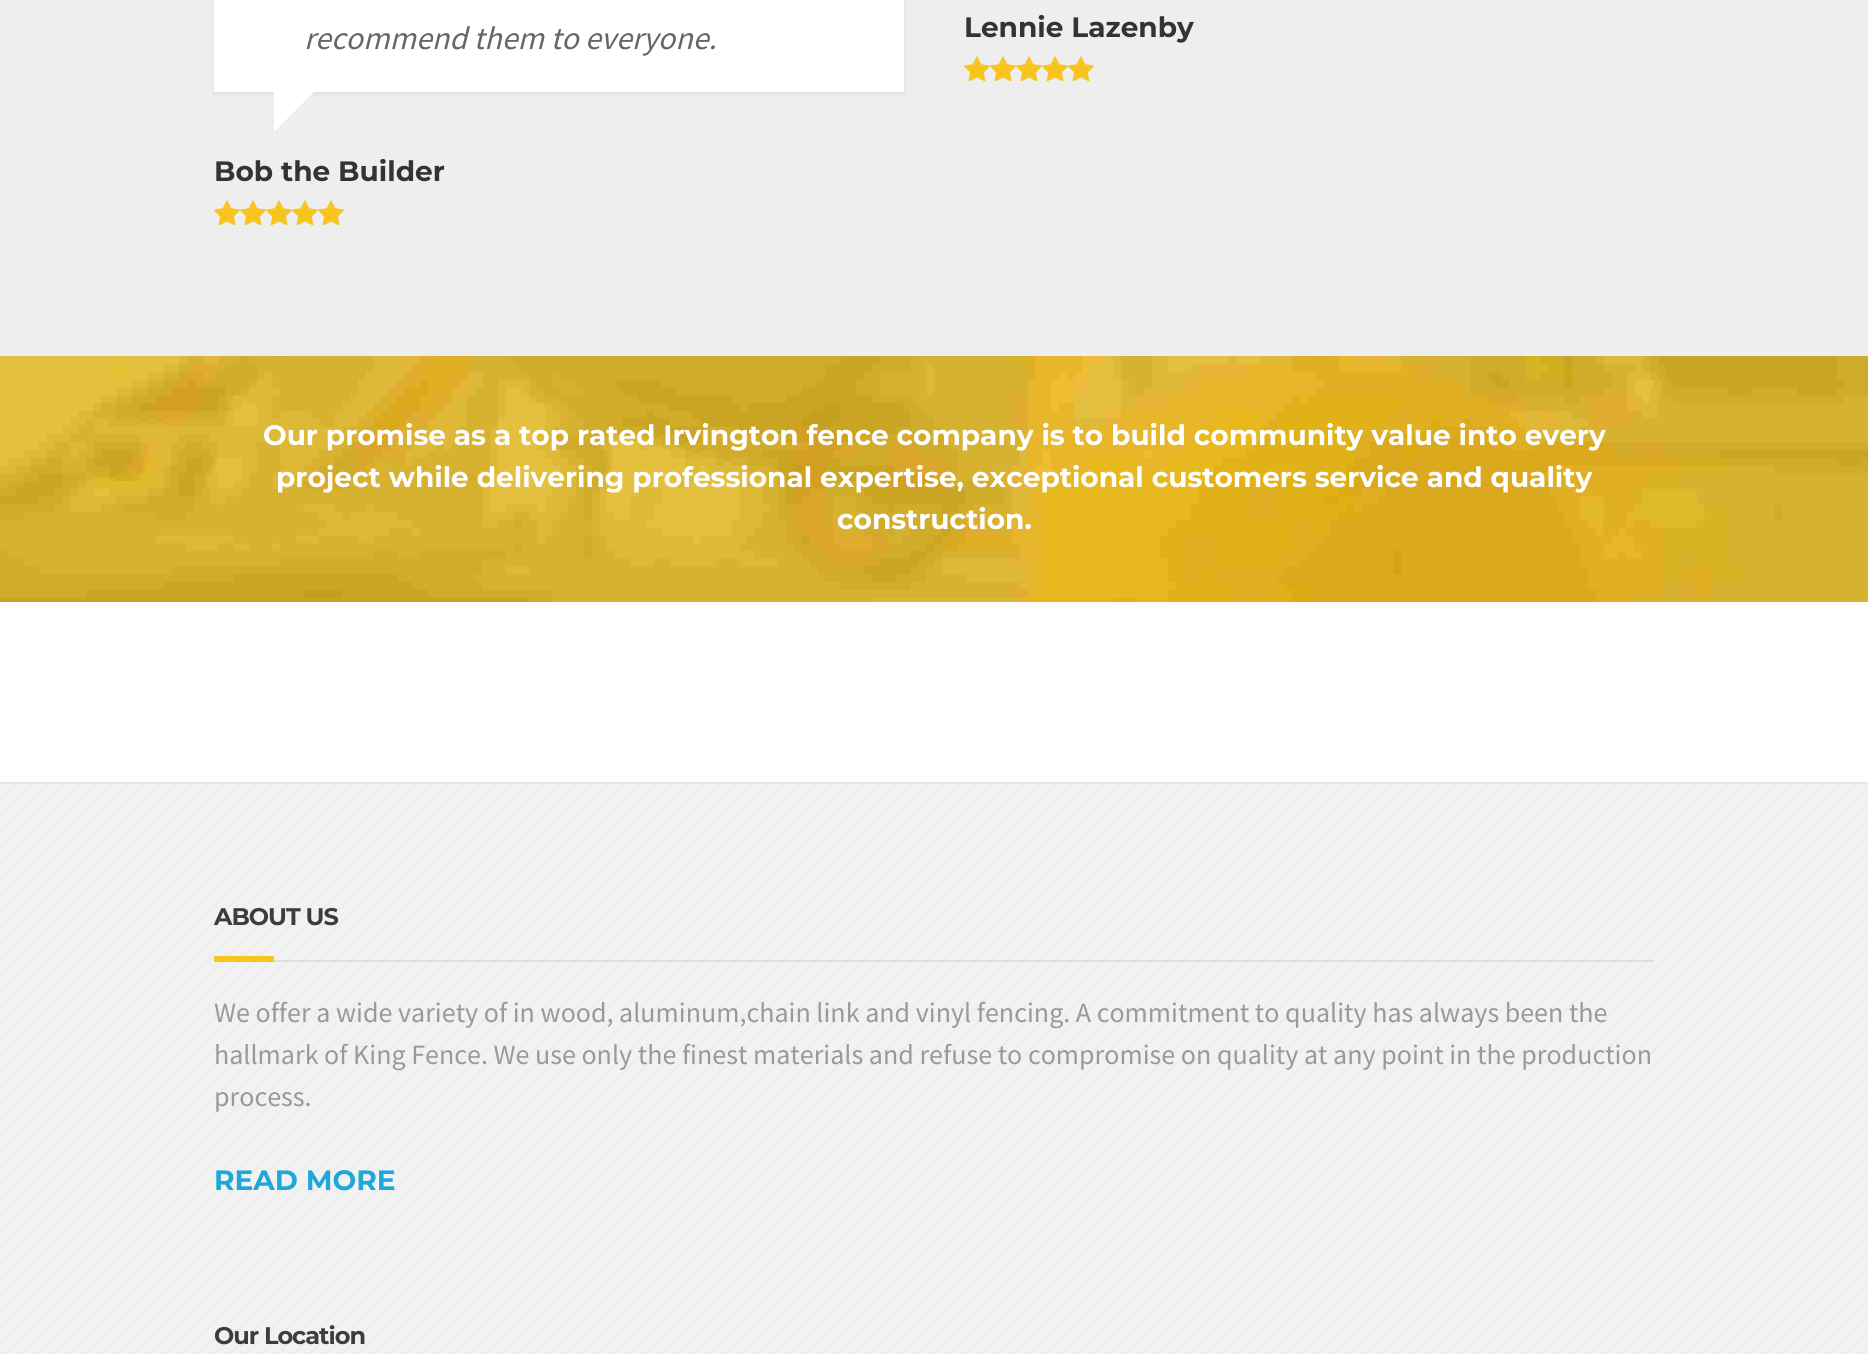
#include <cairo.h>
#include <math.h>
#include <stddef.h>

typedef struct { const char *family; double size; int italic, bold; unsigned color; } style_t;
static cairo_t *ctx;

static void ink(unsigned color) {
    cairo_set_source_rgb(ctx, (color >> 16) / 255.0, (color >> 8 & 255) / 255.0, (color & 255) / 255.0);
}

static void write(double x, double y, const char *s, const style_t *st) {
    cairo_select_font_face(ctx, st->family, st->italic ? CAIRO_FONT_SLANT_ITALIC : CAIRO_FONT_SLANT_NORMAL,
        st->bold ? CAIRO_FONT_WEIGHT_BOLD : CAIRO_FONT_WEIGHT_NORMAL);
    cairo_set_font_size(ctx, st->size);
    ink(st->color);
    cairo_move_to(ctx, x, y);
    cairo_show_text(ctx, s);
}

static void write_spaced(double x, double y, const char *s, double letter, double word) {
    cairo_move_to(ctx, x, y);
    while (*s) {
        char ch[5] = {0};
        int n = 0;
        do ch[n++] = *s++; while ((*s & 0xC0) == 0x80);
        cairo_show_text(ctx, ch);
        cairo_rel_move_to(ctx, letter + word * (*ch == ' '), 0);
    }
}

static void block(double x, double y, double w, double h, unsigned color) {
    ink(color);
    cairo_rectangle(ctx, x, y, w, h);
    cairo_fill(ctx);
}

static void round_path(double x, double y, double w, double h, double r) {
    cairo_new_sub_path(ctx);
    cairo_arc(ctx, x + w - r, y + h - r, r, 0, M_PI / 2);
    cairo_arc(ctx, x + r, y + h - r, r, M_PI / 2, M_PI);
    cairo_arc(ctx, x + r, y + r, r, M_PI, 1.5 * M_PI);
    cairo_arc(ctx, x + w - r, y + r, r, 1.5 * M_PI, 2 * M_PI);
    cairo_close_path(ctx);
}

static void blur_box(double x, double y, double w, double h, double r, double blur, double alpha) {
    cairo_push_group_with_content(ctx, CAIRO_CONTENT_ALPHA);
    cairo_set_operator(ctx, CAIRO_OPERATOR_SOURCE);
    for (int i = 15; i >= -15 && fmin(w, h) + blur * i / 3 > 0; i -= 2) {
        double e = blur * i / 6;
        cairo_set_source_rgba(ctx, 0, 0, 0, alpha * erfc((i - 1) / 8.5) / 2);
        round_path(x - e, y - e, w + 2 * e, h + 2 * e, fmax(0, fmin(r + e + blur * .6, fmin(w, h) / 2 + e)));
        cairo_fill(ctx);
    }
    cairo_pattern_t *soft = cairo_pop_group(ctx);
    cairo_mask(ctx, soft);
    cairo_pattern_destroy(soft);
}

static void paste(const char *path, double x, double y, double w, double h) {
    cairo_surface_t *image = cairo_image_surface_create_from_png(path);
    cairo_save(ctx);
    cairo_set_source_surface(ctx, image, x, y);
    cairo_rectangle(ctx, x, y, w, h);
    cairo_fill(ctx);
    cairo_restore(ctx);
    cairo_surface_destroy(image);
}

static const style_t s1 = {"Source Sans Pro", 32, 1, 0, 0x666666};
static const style_t s2 = {"Montserrat Thin", 28, 0, 0, 0x333333};
static const style_t s3 = {"Montserrat Thin", 28, 0, 0, 0xffffff};
static const style_t s4 = {"Source Sans Pro", 28, 0, 0, 0x999999};
static const style_t s5 = {"Montserrat Thin", 28, 0, 0, 0x1fa7da};

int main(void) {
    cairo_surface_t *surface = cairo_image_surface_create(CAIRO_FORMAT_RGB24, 1868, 1354);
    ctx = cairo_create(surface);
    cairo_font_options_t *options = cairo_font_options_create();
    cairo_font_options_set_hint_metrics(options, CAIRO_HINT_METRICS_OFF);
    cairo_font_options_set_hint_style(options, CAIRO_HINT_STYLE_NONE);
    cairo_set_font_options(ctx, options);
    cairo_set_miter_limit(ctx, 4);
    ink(0xffffff);
    cairo_paint(ctx);
    block(0, 0, 1868, 356, 0xeeeeee);
    ink(0x000000);
    blur_box(214, -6, 690, 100, 0, 2, 0.08);
    block(214, 0, 690, 92, 0xffffff);
    write(304, 49, "recommend them to everyone.", &s1);
    ink(0xffffff);
    cairo_new_path(ctx);
    cairo_move_to(ctx, 274, 92);
    cairo_line_to(ctx, 314, 92);
    cairo_line_to(ctx, 274, 132);
    cairo_close_path(ctx);
    cairo_fill(ctx);
    write(214, 181, "Bob the Builder", &s2);
    paste("pic1.png", 214, 200, 26, 26);
    paste("pic1.png", 240, 200, 26, 26);
    paste("pic1.png", 266, 200, 26, 26);
    paste("pic1.png", 292, 200, 26, 26);
    paste("pic1.png", 318, 200, 26, 26);
    write(964, 37, "Lennie Lazenby", &s2);
    paste("pic1.png", 964, 56, 26, 26);
    paste("pic1.png", 990, 56, 26, 26);
    paste("pic1.png", 1016, 56, 26, 26);
    paste("pic1.png", 1042, 56, 26, 26);
    paste("pic1.png", 1068, 56, 26, 26);
    paste("pic2.png", 0, 356, 1868, 246);
    write(263, 445, "Our promise as a top rated Irvington fence company is to build community value into every", &s3);
    write(276, 487, "project while delivering professional expertise, exceptional customers service and quality", &s3);
    write(837, 529, "construction.", &s3);
    block(0, 784, 1868, 570, 0xf2f2f2);
    paste("pic3.png", 0, 784, 1868, 570);
    block(0, 782, 1868, 2, 0xe6e6e6);
    cairo_set_source_rgba(ctx, 0, 0, 0, 0.08);
    cairo_rectangle(ctx, 274, 960, 1380, 2);
    cairo_fill(ctx);
    cairo_set_font_size(ctx, 24);
    ink(0x3d3d3d);
    write_spaced(214, 925, "ABOUT US", -1, 0);
    block(214, 956, 60, 6, 0xf7c51e);
    write(214, 1022, "We offer a wide variety of in wood, aluminum,chain link and vinyl fencing. A commitment to quality has always been the", &s4);
    write(214, 1064, "hallmark of King Fence. We use only the finest materials and refuse to compromise on quality at any point in the production", &s4);
    write(214, 1106, "process.", &s4);
    write(214, 1190, "READ MORE", &s5);
    cairo_set_font_size(ctx, 24);
    ink(0x3d3d3d);
    write_spaced(214, 1344, "Our Location", -1, 0);
    cairo_surface_write_to_png(surface, "screenshot.png");
    cairo_font_options_destroy(options);
    cairo_destroy(ctx);
    cairo_surface_destroy(surface);
    return 0;
}
